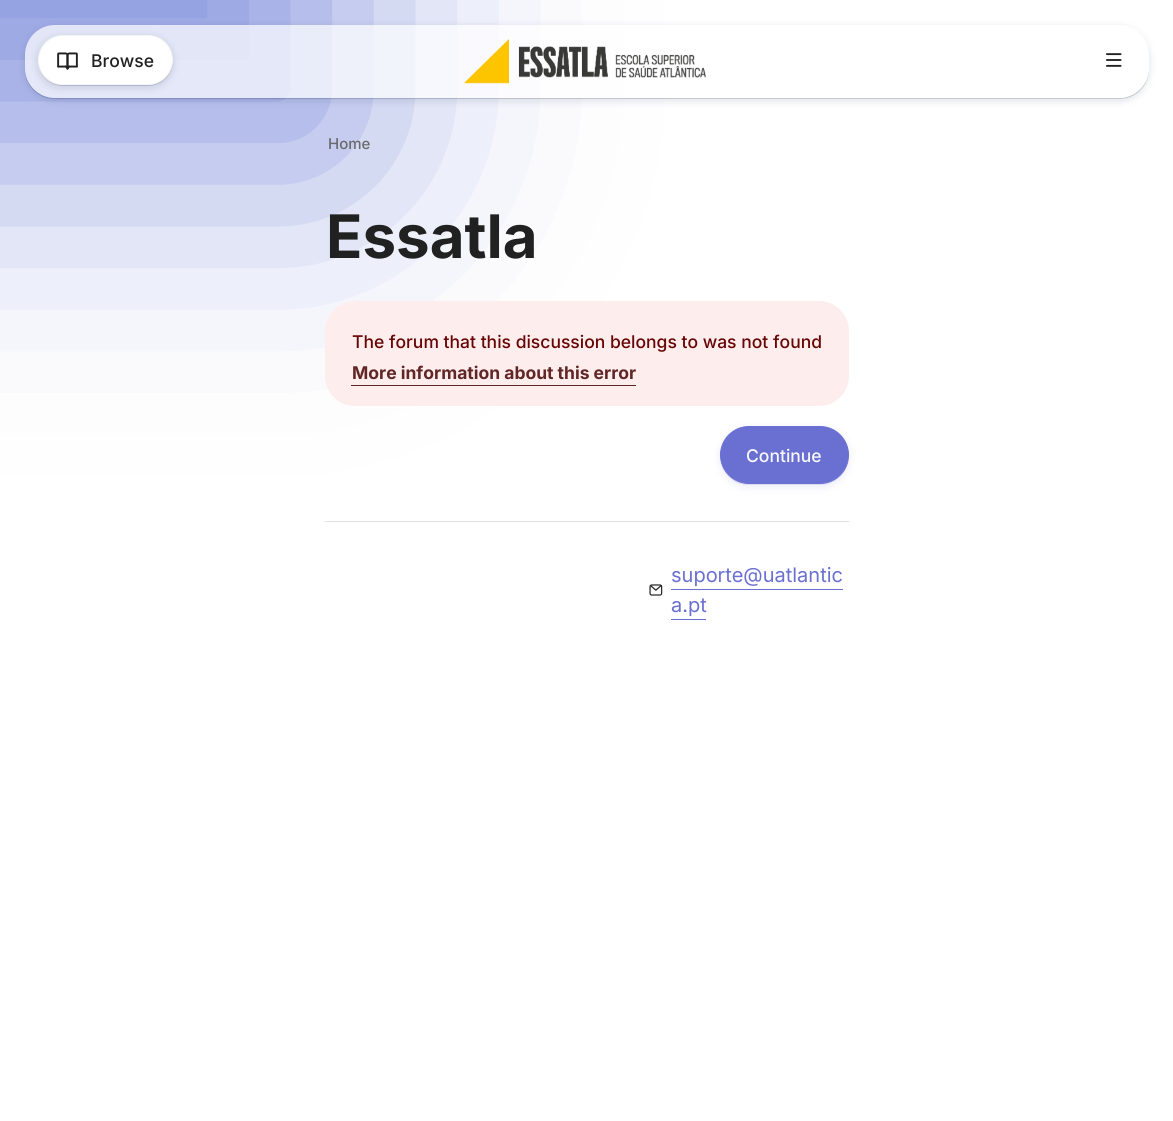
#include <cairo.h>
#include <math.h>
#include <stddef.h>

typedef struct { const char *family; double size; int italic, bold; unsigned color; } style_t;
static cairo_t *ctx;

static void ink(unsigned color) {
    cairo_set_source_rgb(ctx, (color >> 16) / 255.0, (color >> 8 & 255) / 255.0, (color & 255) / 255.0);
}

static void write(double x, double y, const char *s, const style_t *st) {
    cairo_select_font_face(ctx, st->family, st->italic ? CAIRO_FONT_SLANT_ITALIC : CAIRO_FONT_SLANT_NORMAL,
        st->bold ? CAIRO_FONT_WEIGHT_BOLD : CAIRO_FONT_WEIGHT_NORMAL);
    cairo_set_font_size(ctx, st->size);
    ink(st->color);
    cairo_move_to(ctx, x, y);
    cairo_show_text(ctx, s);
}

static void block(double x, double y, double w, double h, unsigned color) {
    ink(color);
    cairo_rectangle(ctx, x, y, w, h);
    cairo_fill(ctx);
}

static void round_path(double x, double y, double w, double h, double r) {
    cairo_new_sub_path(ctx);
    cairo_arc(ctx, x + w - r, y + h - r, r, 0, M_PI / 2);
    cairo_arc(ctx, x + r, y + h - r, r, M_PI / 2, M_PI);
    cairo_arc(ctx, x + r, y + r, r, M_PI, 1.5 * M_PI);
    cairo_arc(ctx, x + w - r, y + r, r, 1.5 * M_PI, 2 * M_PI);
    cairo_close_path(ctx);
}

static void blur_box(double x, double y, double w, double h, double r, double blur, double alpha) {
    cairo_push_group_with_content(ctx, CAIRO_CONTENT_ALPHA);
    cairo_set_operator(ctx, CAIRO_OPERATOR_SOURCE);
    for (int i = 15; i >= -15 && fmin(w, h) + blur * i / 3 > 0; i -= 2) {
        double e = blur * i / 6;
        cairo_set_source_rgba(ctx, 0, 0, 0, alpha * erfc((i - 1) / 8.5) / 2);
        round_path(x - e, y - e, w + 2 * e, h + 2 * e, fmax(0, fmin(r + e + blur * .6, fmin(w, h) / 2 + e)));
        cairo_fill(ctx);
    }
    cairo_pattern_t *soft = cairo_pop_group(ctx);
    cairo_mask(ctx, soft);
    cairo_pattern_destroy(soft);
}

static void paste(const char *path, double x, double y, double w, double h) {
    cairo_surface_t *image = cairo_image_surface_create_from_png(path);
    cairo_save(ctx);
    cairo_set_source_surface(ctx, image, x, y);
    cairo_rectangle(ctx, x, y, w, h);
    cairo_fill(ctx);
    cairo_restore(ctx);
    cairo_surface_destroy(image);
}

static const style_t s1 = {"Inter Medium", 17.5, 0, 0, 0x212121};
static const style_t s2 = {"Inter Medium", 15, 0, 0, 0x6a6a6a};
static const style_t s3 = {"Inter", 60, 0, 1, 0x212121};
static const style_t s4 = {"Inter Medium", 17.5, 0, 0, 0x680505};
static const style_t s5 = {"Inter", 17.5, 0, 1, 0x612626};
static const style_t s6 = {"Inter Medium", 17.5, 0, 0, 0xf8f8fd};
static const style_t s7 = {"Inter", 20, 0, 0, 0x6a70d1};

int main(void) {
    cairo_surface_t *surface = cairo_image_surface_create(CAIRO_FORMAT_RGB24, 1173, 1121);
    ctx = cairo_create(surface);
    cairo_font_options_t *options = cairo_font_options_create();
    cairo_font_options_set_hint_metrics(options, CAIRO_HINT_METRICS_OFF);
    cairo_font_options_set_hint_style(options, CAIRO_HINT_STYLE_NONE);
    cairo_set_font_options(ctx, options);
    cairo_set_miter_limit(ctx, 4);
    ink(0xffffff);
    cairo_paint(ctx);
    ink(0x8c9adf);
    blur_box(-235, -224, 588, 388, 0, 125, 1);
    cairo_save(ctx);
    cairo_set_fill_rule(ctx, CAIRO_FILL_RULE_EVEN_ODD);
    cairo_new_path(ctx);
    cairo_move_to(ctx, 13, 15);
    cairo_line_to(ctx, 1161, 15);
    cairo_line_to(ctx, 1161, 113);
    cairo_line_to(ctx, 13, 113);
    cairo_close_path(ctx);
    cairo_move_to(ctx, 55, 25);
    cairo_line_to(ctx, 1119, 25);
    cairo_curve_to(ctx, 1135.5, 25, 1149, 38.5, 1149, 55);
    cairo_line_to(ctx, 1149, 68);
    cairo_curve_to(ctx, 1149, 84.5, 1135.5, 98, 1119, 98);
    cairo_line_to(ctx, 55, 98);
    cairo_curve_to(ctx, 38.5, 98, 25, 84.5, 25, 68);
    cairo_line_to(ctx, 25, 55);
    cairo_curve_to(ctx, 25, 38.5, 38.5, 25, 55, 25);
    cairo_close_path(ctx);
    cairo_clip(ctx);
    ink(0x091e42);
    blur_box(23, 25, 1128, 78, 33, 3, 0.09);
    cairo_restore(ctx);
    cairo_set_source_rgba(ctx, 0.035, 0.118, 0.259, 0.18);
    cairo_new_path(ctx);
    cairo_move_to(ctx, 25, 68);
    cairo_line_to(ctx, 25, 69);
    cairo_curve_to(ctx, 25, 86, 38, 99, 55, 99);
    cairo_line_to(ctx, 1119, 99);
    cairo_curve_to(ctx, 1136, 99, 1149, 86, 1149, 69);
    cairo_line_to(ctx, 1149, 56);
    cairo_curve_to(ctx, 1149, 53, 1149, 51, 1148, 48);
    cairo_line_to(ctx, 1149, 55);
    cairo_line_to(ctx, 1149, 68);
    cairo_curve_to(ctx, 1149, 84, 1135, 98, 1119, 98);
    cairo_line_to(ctx, 55, 98);
    cairo_curve_to(ctx, 38, 98, 25, 84, 25, 68);
    cairo_close_path(ctx);
    cairo_fill(ctx);
    cairo_set_source_rgba(ctx, 1, 1, 1, 0.7);
    round_path(25, 25, 1124, 73, 30);
    cairo_fill(ctx);
    ink(0x091e42);
    blur_box(35, 35, 140, 55, 27.5, 3, 0.09);
    cairo_set_source_rgba(ctx, 0.035, 0.118, 0.259, 0.18);
    cairo_new_path(ctx);
    cairo_move_to(ctx, 40, 72);
    cairo_curve_to(ctx, 44, 80, 53, 86, 63, 86);
    cairo_line_to(ctx, 148, 86);
    cairo_curve_to(ctx, 162, 86, 173, 75, 173, 61);
    cairo_curve_to(ctx, 173, 57, 172, 53, 170, 49);
    cairo_curve_to(ctx, 172, 53, 172, 56, 172, 60);
    cairo_curve_to(ctx, 172, 74, 161, 85, 148, 85);
    cairo_line_to(ctx, 62, 85);
    cairo_curve_to(ctx, 53, 85, 45, 80, 40, 72);
    cairo_close_path(ctx);
    cairo_fill(ctx);
    ink(0xffffff);
    round_path(38.5, 35.5, 134, 49, 24.5);
    cairo_fill_preserve(ctx);
    ink(0xf5f5f5);
    cairo_set_line_width(ctx, 1);
    cairo_stroke(ctx);
    paste("pic1.png", 57, 52, 21, 18);
    write(91, 67, "Browse", &s1);
    paste("pic2.png", 464, 39, 242, 45);
    paste("pic3.png", 1106, 53, 16, 14);
    write(328, 149, "Home", &s2);
    write(326, 258, "Essatla", &s3);
    ink(0xfeeded);
    round_path(325, 301, 524, 105, 30);
    cairo_fill(ctx);
    write(352, 348, "The forum that this discussion belongs to was not found", &s4);
    write(352, 379, "More information about this error", &s5);
    block(351, 385, 285, 1, 0x612626);
    ink(0x6a70d1);
    blur_box(718, 426, 133, 63, 31.5, 3, 0.09);
    cairo_set_source_rgba(ctx, 0.416, 0.439, 0.82, 0.18);
    cairo_new_path(ctx);
    cairo_move_to(ctx, 720, 456);
    cairo_curve_to(ctx, 720, 472, 733, 485, 748, 485);
    cairo_line_to(ctx, 820, 485);
    cairo_curve_to(ctx, 836, 485, 849, 472, 849, 456);
    cairo_line_to(ctx, 848, 451);
    cairo_line_to(ctx, 849, 455);
    cairo_curve_to(ctx, 849, 471, 836, 484, 820, 484);
    cairo_line_to(ctx, 749, 484);
    cairo_curve_to(ctx, 733, 484, 720, 471, 720, 456);
    cairo_close_path(ctx);
    cairo_fill(ctx);
    ink(0x6a70d1);
    round_path(720.5, 426.5, 128, 57, 28.5);
    cairo_fill_preserve(ctx);
    cairo_stroke(ctx);
    write(746, 462, "Continue", &s6);
    block(325, 521, 524, 1, 0xe1e1e1);
    paste("pic4.png", 649, 584, 14, 12);
    write(671, 582, "suporte@uatlantic", &s7);
    block(671, 589, 172, 1, 0x6a70d1);
    write(671, 612, "a.pt", &s7);
    block(671, 619, 35, 1, 0x6a70d1);
    cairo_surface_write_to_png(surface, "screenshot.png");
    cairo_font_options_destroy(options);
    cairo_destroy(ctx);
    cairo_surface_destroy(surface);
    return 0;
}
